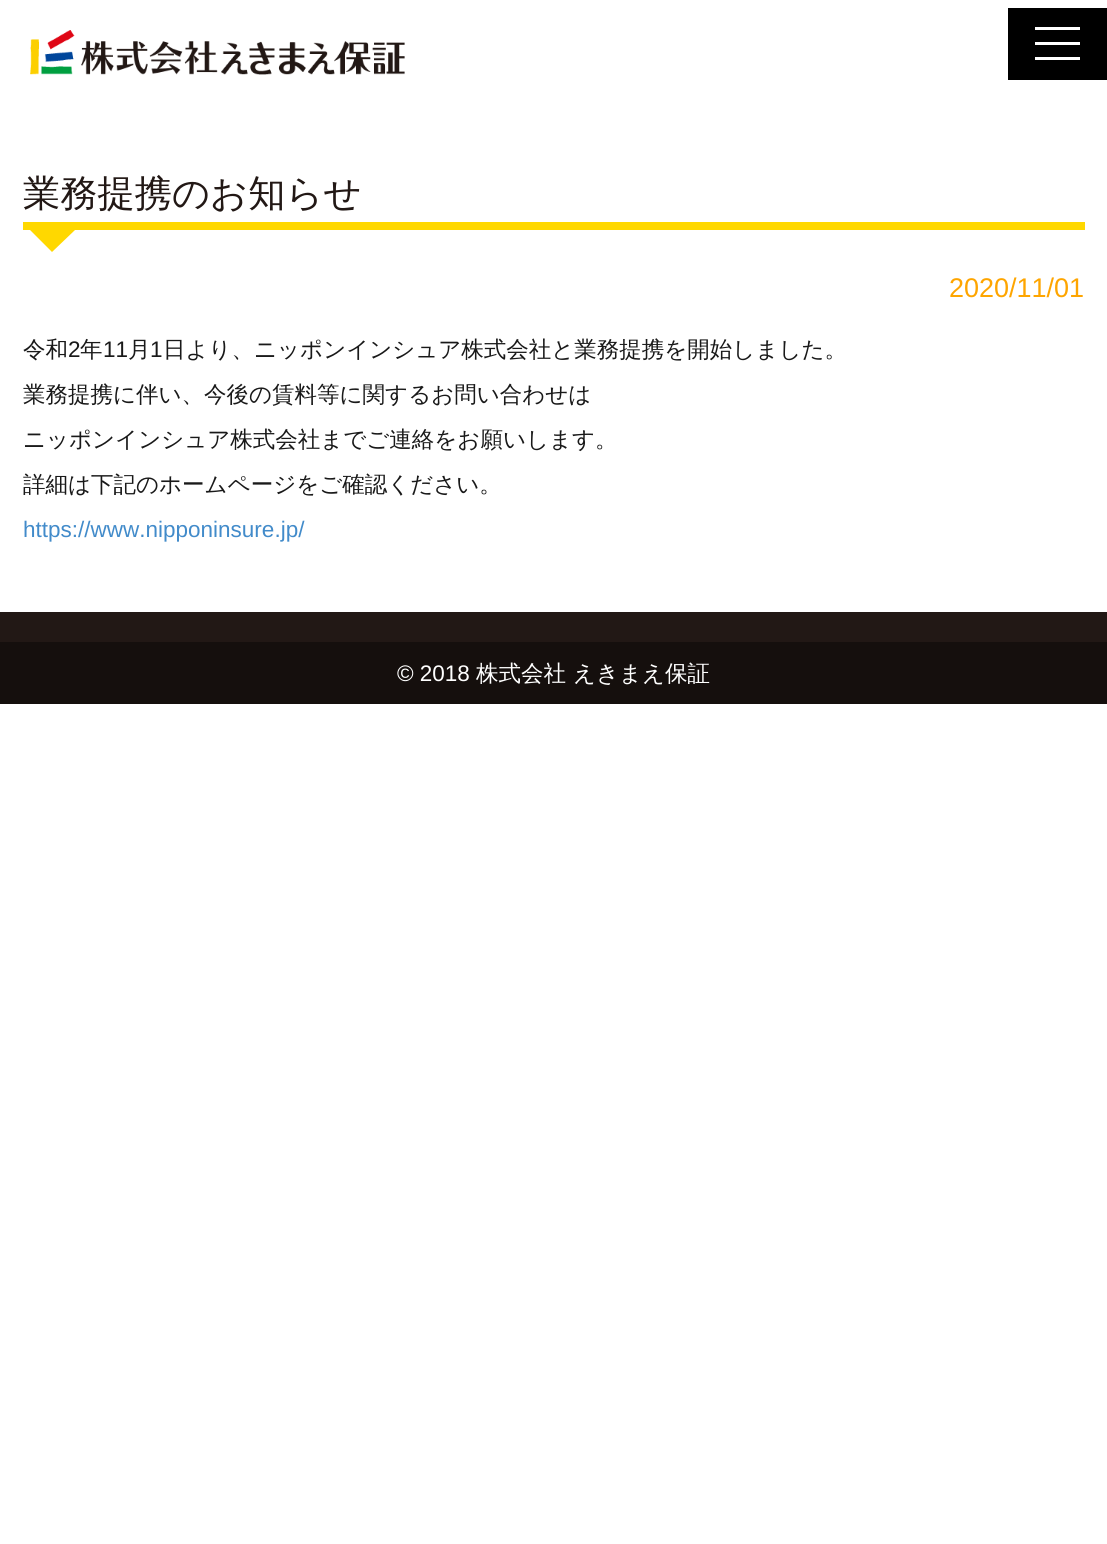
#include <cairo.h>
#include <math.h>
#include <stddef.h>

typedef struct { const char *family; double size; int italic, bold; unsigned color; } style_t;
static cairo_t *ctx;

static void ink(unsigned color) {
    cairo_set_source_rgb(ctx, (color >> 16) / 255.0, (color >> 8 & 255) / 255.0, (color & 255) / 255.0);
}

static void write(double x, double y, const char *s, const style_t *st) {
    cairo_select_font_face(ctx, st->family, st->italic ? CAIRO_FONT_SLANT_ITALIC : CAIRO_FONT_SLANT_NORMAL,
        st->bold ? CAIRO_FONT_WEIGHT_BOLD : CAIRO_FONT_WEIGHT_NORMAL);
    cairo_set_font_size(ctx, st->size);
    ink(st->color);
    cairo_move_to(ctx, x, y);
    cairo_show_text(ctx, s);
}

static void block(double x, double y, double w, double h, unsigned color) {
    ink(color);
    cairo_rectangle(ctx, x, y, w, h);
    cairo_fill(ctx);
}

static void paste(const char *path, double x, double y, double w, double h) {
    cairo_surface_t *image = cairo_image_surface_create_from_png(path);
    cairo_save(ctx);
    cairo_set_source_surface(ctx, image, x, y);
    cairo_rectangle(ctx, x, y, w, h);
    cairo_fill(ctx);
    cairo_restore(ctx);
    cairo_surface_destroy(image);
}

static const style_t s1 = {"WenQuanYi Zen Hei Medium", 37.25, 0, 0, 0x221815};
static const style_t s2 = {"Liberation Sans", 27, 0, 0, 0xfea500};
static const style_t s3 = {"WenQuanYi Zen Hei Medium", 22.5, 0, 0, 0x191919};
static const style_t s4 = {"Liberation Sans", 22.5, 0, 0, 0x191919};
static const style_t s5 = {"Liberation Sans", 22.5, 0, 0, 0x428bca};
static const style_t s6 = {"Liberation Sans", 22.5, 0, 0, 0xffffff};
static const style_t s7 = {"WenQuanYi Zen Hei Medium", 22.5, 0, 0, 0xffffff};

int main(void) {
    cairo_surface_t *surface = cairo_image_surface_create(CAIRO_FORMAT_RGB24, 1107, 1544);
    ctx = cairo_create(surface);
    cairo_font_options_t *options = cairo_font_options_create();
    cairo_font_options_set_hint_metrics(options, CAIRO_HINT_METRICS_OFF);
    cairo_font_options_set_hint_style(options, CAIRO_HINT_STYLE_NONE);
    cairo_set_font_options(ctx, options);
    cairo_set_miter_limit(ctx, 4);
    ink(0xffffff);
    cairo_paint(ctx);
    paste("pic1.png", 30, 30, 375, 45);
    block(1008, 8, 99, 72, 0x000000);
    block(1035, 42, 45, 3, 0xffffff);
    block(1035, 27, 45, 3, 0xffffff);
    block(1035, 57, 45, 3, 0xffffff);
    block(23, 222, 1062, 8, 0xffd800);
    write(23, 206, "業務提携のお知らせ", &s1);
    ink(0xffd800);
    cairo_new_path(ctx);
    cairo_move_to(ctx, 30, 230);
    cairo_line_to(ctx, 75, 230);
    cairo_line_to(ctx, 52, 252);
    cairo_close_path(ctx);
    cairo_fill(ctx);
    write(949, 297, "2020/11/01", &s2);
    write(23, 357, "令和", &s3);
    write(68, 357, "2", &s4);
    write(80, 357, "年", &s3);
    write(103, 357, "11", &s4);
    write(128, 357, "月", &s3);
    write(150, 357, "1", &s4);
    write(163, 357, "日より、ニッポンインシュア株式会社と業務提携を開始しました。", &s3);
    write(23, 402, "業務提携に伴い、今後の賃料等に関するお問い合わせは", &s3);
    write(23, 447, "ニッポンインシュア株式会社までご連絡をお願いします。", &s3);
    write(23, 492, "詳細は下記のホームページをご確認ください。", &s3);
    write(23, 537, "https://www.nipponinsure.jp/", &s5);
    block(0, 612, 1107, 30, 0x221815);
    block(0, 642, 1107, 62, 0x150f0d);
    write(397, 681, "© 2018", &s6);
    write(476, 681, "株式会社", &s7);
    write(573, 681, "えきまえ保証", &s7);
    cairo_surface_write_to_png(surface, "screenshot.png");
    cairo_font_options_destroy(options);
    cairo_destroy(ctx);
    cairo_surface_destroy(surface);
    return 0;
}
